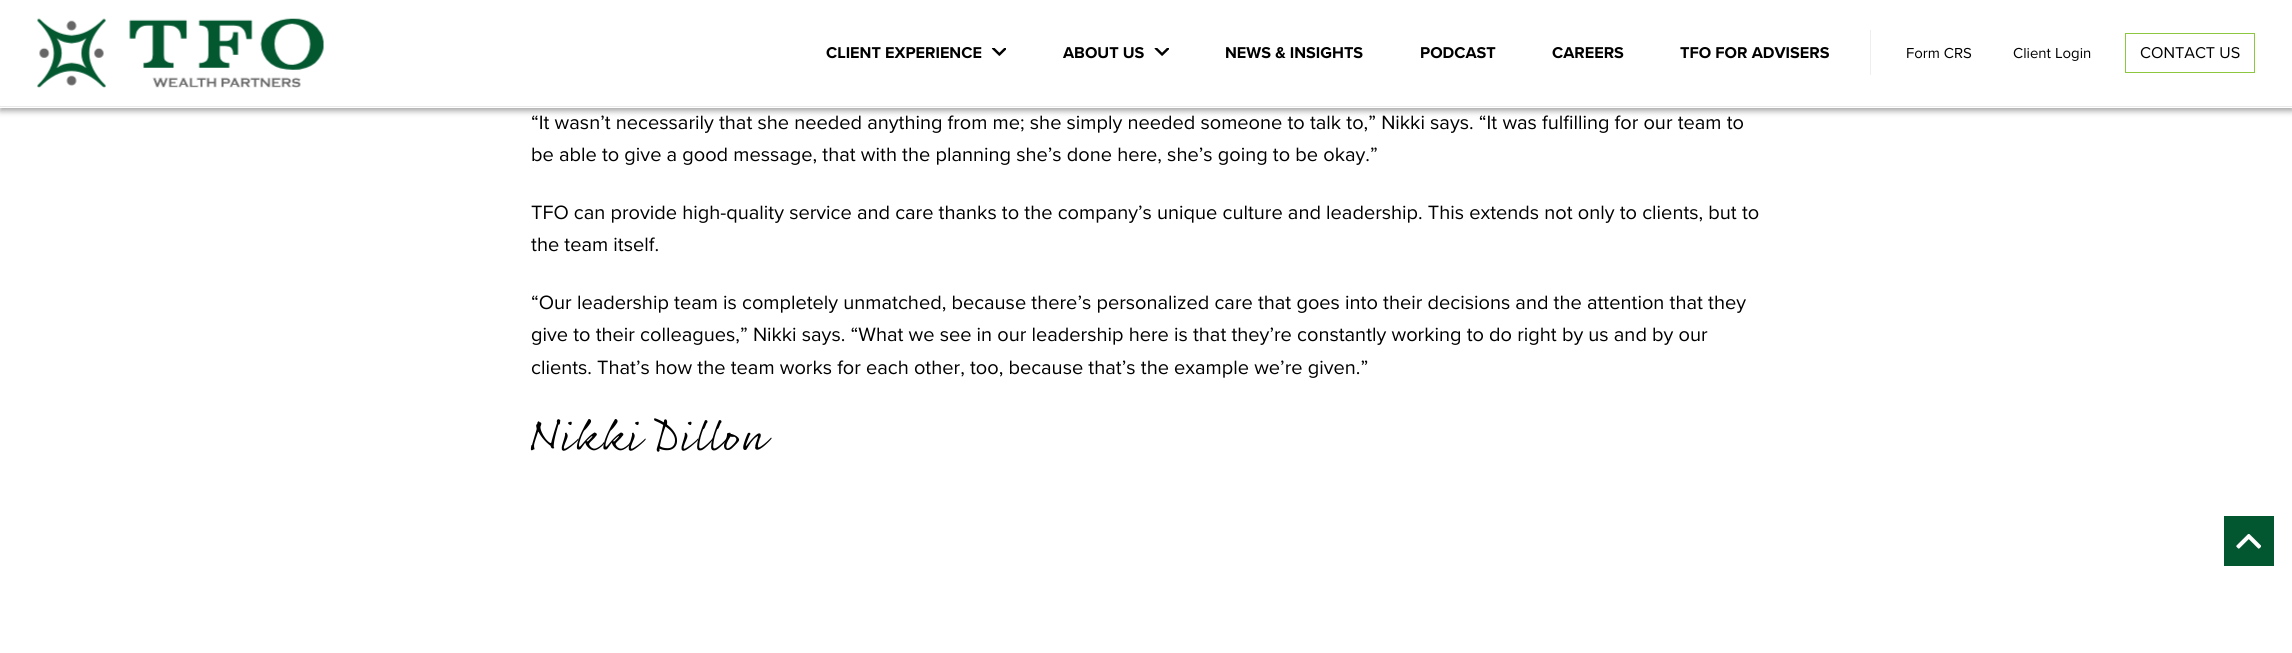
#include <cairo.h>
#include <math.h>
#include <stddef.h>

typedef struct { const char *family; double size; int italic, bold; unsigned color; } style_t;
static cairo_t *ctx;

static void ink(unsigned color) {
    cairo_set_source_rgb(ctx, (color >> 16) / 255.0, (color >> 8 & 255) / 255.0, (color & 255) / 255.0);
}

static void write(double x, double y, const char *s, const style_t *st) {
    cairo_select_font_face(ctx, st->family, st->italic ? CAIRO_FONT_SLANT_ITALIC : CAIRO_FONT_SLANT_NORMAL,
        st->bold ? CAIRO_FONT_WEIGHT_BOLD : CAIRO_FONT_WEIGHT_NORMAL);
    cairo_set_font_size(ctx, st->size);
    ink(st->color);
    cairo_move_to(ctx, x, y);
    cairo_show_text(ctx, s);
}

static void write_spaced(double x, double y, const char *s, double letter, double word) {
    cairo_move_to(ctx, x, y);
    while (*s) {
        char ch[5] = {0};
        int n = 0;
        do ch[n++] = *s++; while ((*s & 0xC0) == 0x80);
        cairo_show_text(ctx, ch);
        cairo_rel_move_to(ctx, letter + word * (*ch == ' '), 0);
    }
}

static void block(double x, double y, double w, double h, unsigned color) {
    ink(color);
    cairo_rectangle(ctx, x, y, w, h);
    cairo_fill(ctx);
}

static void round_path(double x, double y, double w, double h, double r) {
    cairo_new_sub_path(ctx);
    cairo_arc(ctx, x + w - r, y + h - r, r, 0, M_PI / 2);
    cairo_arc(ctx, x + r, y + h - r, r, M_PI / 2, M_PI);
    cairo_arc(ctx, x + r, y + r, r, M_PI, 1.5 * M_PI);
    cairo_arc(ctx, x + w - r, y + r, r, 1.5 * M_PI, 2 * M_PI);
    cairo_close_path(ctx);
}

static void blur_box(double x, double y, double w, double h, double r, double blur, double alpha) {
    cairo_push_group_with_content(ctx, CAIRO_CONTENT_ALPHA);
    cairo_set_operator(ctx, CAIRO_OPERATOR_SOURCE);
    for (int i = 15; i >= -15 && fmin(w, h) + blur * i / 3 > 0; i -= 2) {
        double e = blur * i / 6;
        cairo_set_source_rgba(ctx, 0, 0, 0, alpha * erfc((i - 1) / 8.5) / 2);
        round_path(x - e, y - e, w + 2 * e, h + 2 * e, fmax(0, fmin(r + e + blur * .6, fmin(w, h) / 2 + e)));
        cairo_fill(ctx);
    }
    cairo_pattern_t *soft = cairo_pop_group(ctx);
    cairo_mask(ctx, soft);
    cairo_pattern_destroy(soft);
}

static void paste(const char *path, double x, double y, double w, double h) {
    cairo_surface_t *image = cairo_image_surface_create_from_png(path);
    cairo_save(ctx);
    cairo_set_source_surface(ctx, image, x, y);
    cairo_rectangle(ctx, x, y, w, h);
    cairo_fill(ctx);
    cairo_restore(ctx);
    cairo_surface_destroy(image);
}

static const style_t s1 = {"Proxima Nova", 16.25, 0, 1, 0x000000};
static const style_t s2 = {"Proxima Nova", 15, 0, 0, 0x000000};
static const style_t s3 = {"Proxima Nova", 16.25, 0, 0, 0x000000};
static const style_t s4 = {"Proxima Nova", 20, 0, 0, 0x000000};

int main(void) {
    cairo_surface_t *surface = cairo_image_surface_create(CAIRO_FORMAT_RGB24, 2292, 653);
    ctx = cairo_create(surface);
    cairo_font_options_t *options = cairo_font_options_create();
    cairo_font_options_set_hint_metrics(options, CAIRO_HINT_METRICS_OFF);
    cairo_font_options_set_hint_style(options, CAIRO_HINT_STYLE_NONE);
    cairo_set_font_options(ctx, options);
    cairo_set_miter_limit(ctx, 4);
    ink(0xffffff);
    cairo_paint(ctx);
    ink(0x000000);
    blur_box(0, 4, 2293, 107, 0, 3, 0.35);
    block(0, 0, 2292, 108, 0xffffff);
    block(0, 106, 2292, 1, 0xeaeaeb);
    paste("pic1.png", 37, 18, 287, 70);
    write(826, 58, "CLIENT EXPERIENCE", &s1);
    paste("pic2.png", 991, 48, 15, 8);
    write(1063, 58, "ABOUT US", &s1);
    paste("pic3.png", 1154, 48, 15, 8);
    write(1225, 58, "NEWS & INSIGHTS", &s1);
    write(1420, 58, "PODCAST", &s1);
    write(1552, 58, "CAREERS", &s1);
    write(1680, 58, "TFO FOR ADVISERS", &s1);
    block(1870, 30, 1, 45, 0xeeeeee);
    write(1906, 58, "Form CRS", &s2);
    write(2013, 58, "Client Login", &s2);
    cairo_rectangle(ctx, 2125.5, 33.5, 129, 39);
    ink(0x8dc63f);
    cairo_set_line_width(ctx, 1);
    cairo_stroke(ctx);
    write(2140, 58, "CONTACT US", &s3);
    write(531, 129, "“It wasn’t necessarily that she needed anything from me; she simply needed someone to talk to,” Nikki says. “It was fulfilling for our team to", &s4);
    write(531, 161, "be able to give a good message, that with the planning she’s done here, she’s going to be okay.”", &s4);
    write(531, 219, "TFO can provide high-quality service and care thanks to the company’s unique culture and leadership. This extends not only to clients, but to", &s4);
    write(531, 251, "the team itself.", &s4);
    write(531, 309, "“Our leadership team is completely unmatched, because there’s personalized care that goes into their decisions and the attention that they", &s4);
    write(531, 341, "give to their colleagues,” Nikki says. “What we see in our leadership here is that they’re constantly working to do right by us and by our", &s4);
    write(531, 374, "clients. That’s how the team works for each other, too, because that’s the example we’re given.”", &s4);
    cairo_select_font_face(ctx, "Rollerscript", CAIRO_FONT_SLANT_NORMAL, CAIRO_FONT_WEIGHT_NORMAL);
    cairo_set_font_size(ctx, 45);
    write_spaced(531, 449, "Nikki", 0, 2);
    write_spaced(654, 449, "Dillon", 0, 2);
    block(2224, 516, 50, 50, 0x025630);
    paste("pic4.png", 2236, 534, 25, 15);
    cairo_surface_write_to_png(surface, "screenshot.png");
    cairo_font_options_destroy(options);
    cairo_destroy(ctx);
    cairo_surface_destroy(surface);
    return 0;
}
